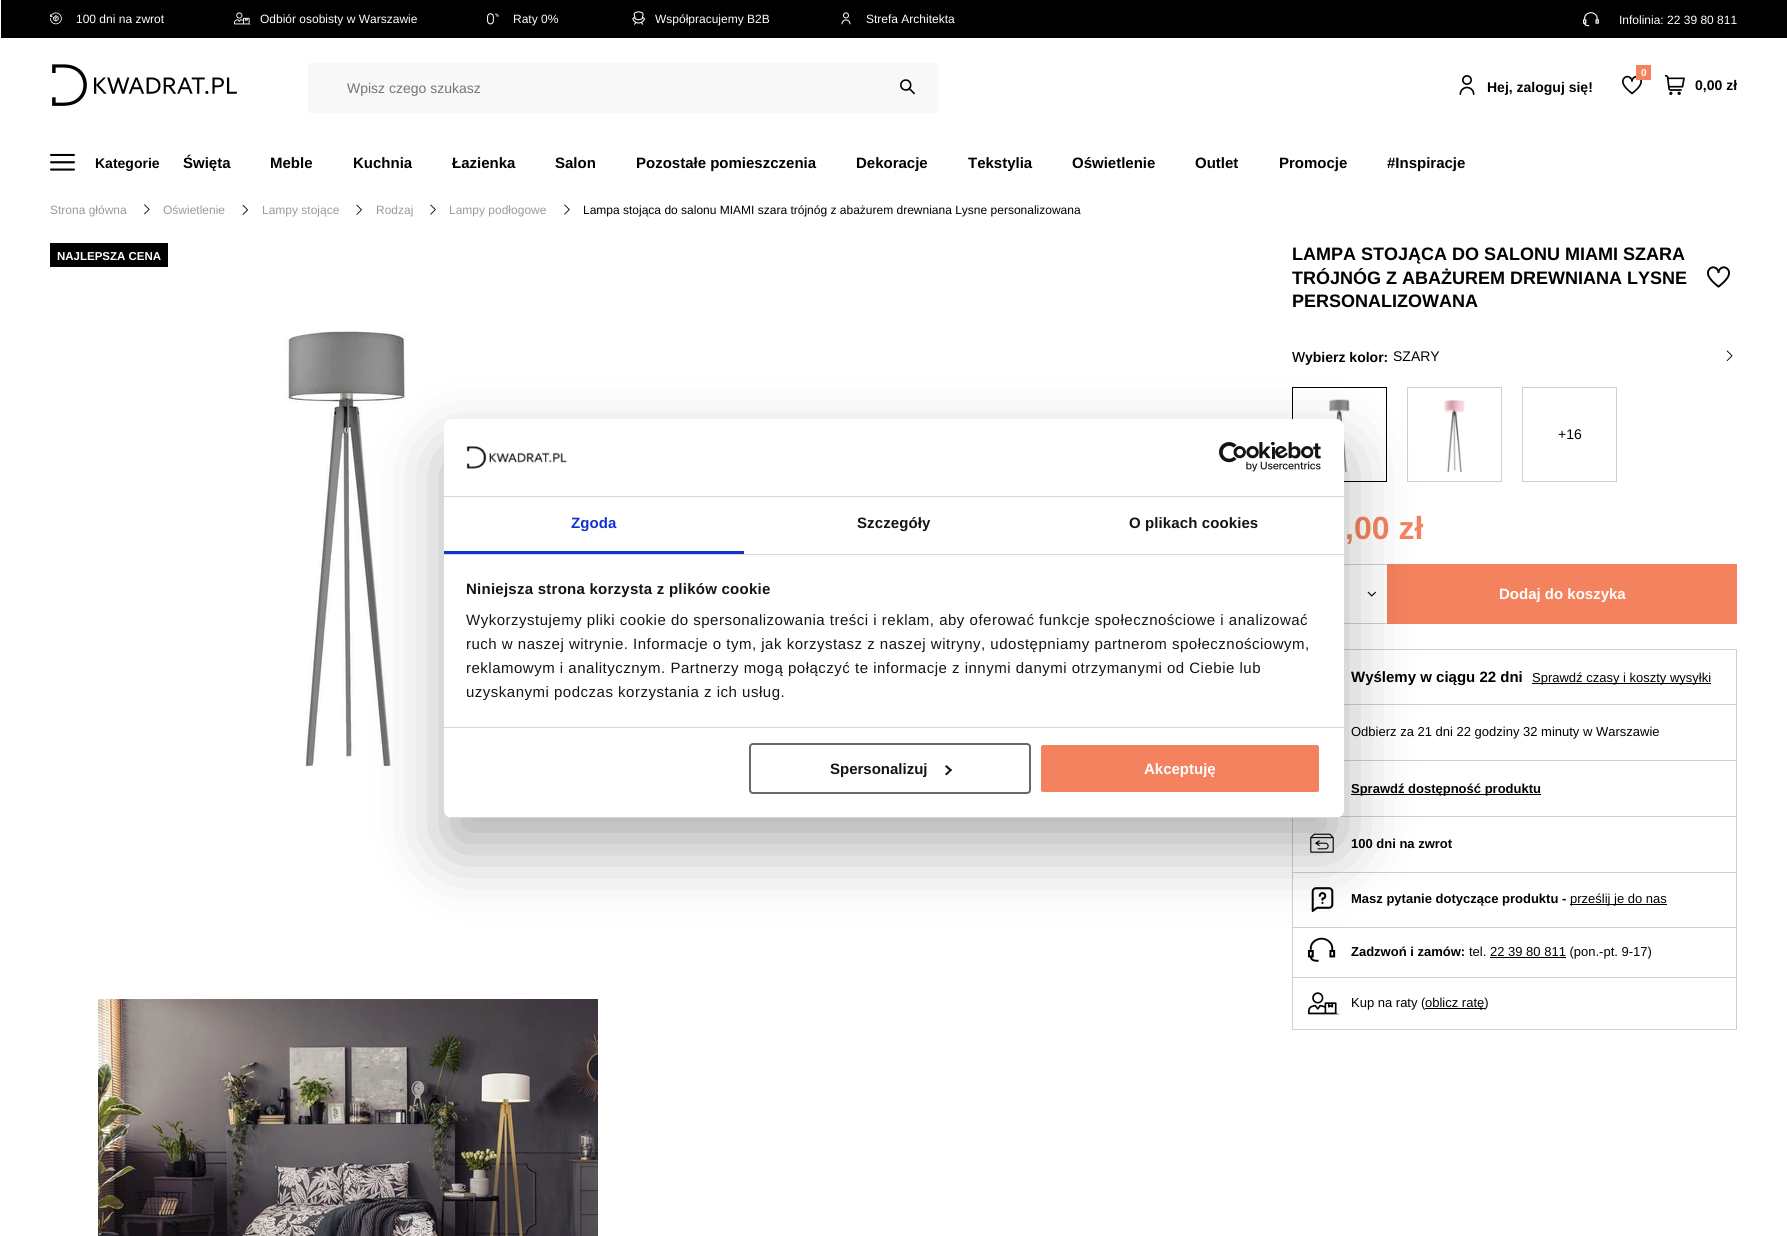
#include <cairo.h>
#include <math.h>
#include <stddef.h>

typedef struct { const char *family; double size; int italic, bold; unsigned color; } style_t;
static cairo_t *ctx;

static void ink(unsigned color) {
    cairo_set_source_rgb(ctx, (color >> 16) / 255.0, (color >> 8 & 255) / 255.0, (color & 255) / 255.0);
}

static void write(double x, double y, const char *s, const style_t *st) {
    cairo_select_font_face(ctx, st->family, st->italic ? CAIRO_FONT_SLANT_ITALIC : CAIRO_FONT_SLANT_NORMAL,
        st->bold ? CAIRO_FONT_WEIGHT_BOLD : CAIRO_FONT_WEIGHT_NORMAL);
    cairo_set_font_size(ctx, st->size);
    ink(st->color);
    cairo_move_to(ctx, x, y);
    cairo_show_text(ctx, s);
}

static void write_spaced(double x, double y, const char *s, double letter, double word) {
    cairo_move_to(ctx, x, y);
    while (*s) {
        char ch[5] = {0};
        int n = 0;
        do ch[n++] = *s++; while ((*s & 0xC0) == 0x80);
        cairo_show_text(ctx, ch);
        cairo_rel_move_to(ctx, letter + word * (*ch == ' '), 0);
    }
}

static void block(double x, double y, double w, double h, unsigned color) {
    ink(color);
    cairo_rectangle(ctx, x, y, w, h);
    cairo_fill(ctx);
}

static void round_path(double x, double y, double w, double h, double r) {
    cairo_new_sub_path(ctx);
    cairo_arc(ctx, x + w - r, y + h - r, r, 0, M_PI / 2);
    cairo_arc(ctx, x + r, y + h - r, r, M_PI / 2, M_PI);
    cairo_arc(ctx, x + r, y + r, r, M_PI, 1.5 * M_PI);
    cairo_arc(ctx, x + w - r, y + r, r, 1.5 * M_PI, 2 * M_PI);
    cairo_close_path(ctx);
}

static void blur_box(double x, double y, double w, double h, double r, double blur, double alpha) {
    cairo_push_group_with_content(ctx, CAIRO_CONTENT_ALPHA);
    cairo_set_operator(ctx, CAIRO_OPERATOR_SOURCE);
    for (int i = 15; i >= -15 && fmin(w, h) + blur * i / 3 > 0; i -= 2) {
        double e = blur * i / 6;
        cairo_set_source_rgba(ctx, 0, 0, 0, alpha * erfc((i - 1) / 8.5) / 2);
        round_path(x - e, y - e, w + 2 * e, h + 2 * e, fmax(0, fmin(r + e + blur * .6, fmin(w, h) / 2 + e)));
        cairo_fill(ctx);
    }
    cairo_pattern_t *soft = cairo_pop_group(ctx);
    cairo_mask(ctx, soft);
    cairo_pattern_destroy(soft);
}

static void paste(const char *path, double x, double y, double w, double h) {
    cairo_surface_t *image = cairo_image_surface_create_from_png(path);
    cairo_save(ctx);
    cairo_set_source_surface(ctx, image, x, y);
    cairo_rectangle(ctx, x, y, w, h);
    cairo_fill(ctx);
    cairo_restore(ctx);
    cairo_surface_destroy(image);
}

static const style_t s1 = {"Liberation Sans", 12, 0, 0, 0xffffff};
static const style_t s2 = {"Liberation Sans", 14, 0, 0, 0x757575};
static const style_t s3 = {"Liberation Sans", 10, 0, 1, 0xffffff};
static const style_t s4 = {"Liberation Sans", 14, 0, 1, 0x000000};
static const style_t s5 = {"Liberation Sans", 15, 0, 1, 0x000000};
static const style_t s6 = {"Liberation Sans", 12, 0, 0, 0x9a9a9a};
static const style_t s7 = {"Liberation Sans", 12, 0, 0, 0x000000};
static const style_t s8 = {"Liberation Sans", 11.5, 0, 1, 0xffffff};
static const style_t s9 = {"Liberation Sans", 18, 0, 1, 0x000000};
static const style_t s10 = {"Noto Sans Medium", 14, 0, 0, 0x000000};
static const style_t s11 = {"Liberation Sans", 14, 0, 0, 0x000000};
static const style_t s12 = {"Liberation Sans", 32, 0, 1, 0xf4825e};
static const style_t s13 = {"Liberation Sans", 15, 0, 1, 0xffffff};
static const style_t s14 = {"Liberation Sans", 13, 0, 0, 0x000000};
static const style_t s15 = {"Liberation Sans", 13, 0, 1, 0x000000};
static const style_t s16 = {"Liberation Sans", 15, 0, 1, 0x141414};

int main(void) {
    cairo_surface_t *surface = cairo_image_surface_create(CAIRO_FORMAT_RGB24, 1787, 1236);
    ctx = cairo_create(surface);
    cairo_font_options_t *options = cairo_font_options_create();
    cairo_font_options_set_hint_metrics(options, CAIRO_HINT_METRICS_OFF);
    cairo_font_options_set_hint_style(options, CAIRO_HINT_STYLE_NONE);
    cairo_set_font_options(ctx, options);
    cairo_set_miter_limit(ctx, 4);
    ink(0xffffff);
    cairo_paint(ctx);
    block(1, 0, 1786, 38, 0x000000);
    paste("pic1.png", 50, 12, 12, 13);
    write(76, 23, "100 dni na zwrot", &s1);
    paste("pic2.png", 234, 12, 18, 13);
    write(260, 23, "Odbiór osobisty w Warszawie", &s1);
    paste("pic3.png", 487, 13, 12, 12);
    write(513, 23, "Raty 0%", &s1);
    paste("pic4.png", 632, 11, 13, 14);
    write(655, 23, "Współpracujemy B2B", &s1);
    paste("pic5.png", 841, 12, 10, 13);
    write(866, 23, "Strefa Architekta", &s1);
    paste("pic6.png", 1583, 12, 16, 15);
    write(1619, 24, "Infolinia: 22 39 80 811", &s1);
    paste("pic7.png", 52, 64, 185, 42);
    block(308, 63, 630, 50, 0xf8f8f8);
    write(347, 93, "Wpisz czego szukasz", &s2);
    paste("pic8.png", 900, 79, 15, 16);
    paste("pic9.png", 1622, 75, 20, 20);
    block(1636, 65, 15, 15, 0xf4825e);
    write(1641, 76, "0", &s3);
    paste("pic10.png", 1459, 75, 16, 20);
    write(1487, 92, "Hej, zaloguj się!", &s4);
    paste("pic11.png", 1665, 75, 20, 20);
    write(1695, 90, "0,00 zł", &s4);
    paste("pic12.png", 50, 153, 25, 18);
    write(95, 168, "Kategorie", &s4);
    write(183, 168, "Święta", &s5);
    write(270, 168, "Meble", &s5);
    write(353, 168, "Kuchnia", &s5);
    write(452, 168, "Łazienka", &s5);
    write(555, 168, "Salon", &s5);
    write(636, 168, "Pozostałe pomieszczenia", &s5);
    write(856, 168, "Dekoracje", &s5);
    write(968, 168, "Tekstylia", &s5);
    write(1072, 168, "Oświetlenie", &s5);
    write(1195, 168, "Outlet", &s5);
    write(1279, 168, "Promocje", &s5);
    write(1387, 168, "#Inspiracje", &s5);
    write(50, 214, "Strona główna", &s6);
    paste("pic13.png", 144, 204, 6, 11);
    write(163, 214, "Oświetlenie", &s6);
    paste("pic14.png", 242, 204, 7, 11);
    write(262, 214, "Lampy stojące", &s6);
    paste("pic15.png", 356, 204, 6, 11);
    write(376, 214, "Rodzaj", &s6);
    paste("pic16.png", 430, 204, 6, 11);
    write(449, 214, "Lampy podłogowe", &s6);
    paste("pic17.png", 564, 204, 6, 11);
    write(583, 214, "Lampa stojąca do salonu MIAMI szara trójnóg z abażurem drewniana Lysne personalizowana", &s7);
    block(50, 243, 118, 24, 0x000000);
    write(57, 260, "NAJLEPSZA CENA", &s8);
    paste("pic18.png", 286, 331, 121, 436);
    paste("pic19.png", 98, 999, 500, 237);
    write(1292, 260, "LAMPA STOJĄCA DO SALONU MIAMI SZARA", &s9);
    write(1292, 284, "TRÓJNÓG Z ABAŻUREM DREWNIANA LYSNE", &s9);
    write(1292, 307, "PERSONALIZOWANA", &s9);
    paste("pic20.png", 1707, 266, 23, 22);
    write(1292, 362, "W", &s10);
    write(1305, 362, "ybierz kolor:", &s4);
    write(1393, 361, "SZARY", &s11);
    paste("pic21.png", 1726, 350, 7, 12);
    cairo_rectangle(ctx, 1292.5, 387.5, 94, 94);
    cairo_set_line_width(ctx, 1);
    cairo_stroke(ctx);
    paste("pic22.png", 1329, 399, 21, 74);
    cairo_rectangle(ctx, 1407.5, 387.5, 94, 94);
    ink(0xcfcfcf);
    cairo_stroke(ctx);
    paste("pic23.png", 1444, 399, 21, 74);
    cairo_rectangle(ctx, 1522.5, 387.5, 94, 94);
    cairo_stroke(ctx);
    write(1558, 439, "+16", &s11);
    write(1345, 539, ",00 zł", &s12);
    block(1344, 564, 43, 1, 0xcfcfcf);
    block(1344, 623, 43, 1, 0xcfcfcf);
    paste("pic24.png", 1367, 591, 9, 6);
    block(1387, 564, 350, 60, 0xf4825e);
    write(1499, 599, "Dodaj do koszyka", &s13);
    block(1344, 649, 393, 1, 0xcfcfcf);
    block(1736, 649, 1, 55, 0xcfcfcf);
    write(1351, 682, "Wyślemy w ciągu 22 dni", &s5);
    block(1532, 683, 179, 1, 0x000000);
    write(1532, 682, "Sprawdź czasy i koszty wysyłki", &s14);
    block(1344, 704, 393, 1, 0xcfcfcf);
    block(1736, 704, 1, 56, 0xcfcfcf);
    write(1351, 736, "Odbierz za 21 dni 22 godziny 32 minuty w Warszawie", &s14);
    block(1344, 760, 393, 1, 0xcfcfcf);
    block(1736, 760, 1, 56, 0xcfcfcf);
    block(1351, 794, 190, 1, 0x000000);
    write(1351, 793, "Sprawdź dostępność produktu", &s15);
    block(1339, 816, 398, 1, 0xcfcfcf);
    block(1736, 816, 1, 56, 0xcfcfcf);
    block(1292, 816, 1, 56, 0xcfcfcf);
    paste("pic25.png", 1310, 833, 24, 20);
    write(1351, 848, "100 dni na zwrot", &s15);
    block(1292, 872, 445, 1, 0xcfcfcf);
    block(1736, 872, 1, 55, 0xcfcfcf);
    block(1292, 872, 1, 55, 0xcfcfcf);
    paste("pic26.png", 1311, 887, 23, 25);
    write(1351, 903, "Masz pytanie dotyczące produktu -", &s15);
    block(1570, 904, 97, 1, 0x000000);
    write(1570, 903, "prześlij je do nas", &s14);
    block(1292, 927, 445, 1, 0xcfcfcf);
    block(1736, 927, 1, 50, 0xcfcfcf);
    block(1292, 927, 1, 50, 0xcfcfcf);
    paste("pic27.png", 1308, 937, 28, 25);
    write(1351, 956, "Zadzwoń i zamów:", &s15);
    write(1469, 956, "tel. 22 39 80 811 (pon.-pt. 9-17)", &s14);
    block(1490, 957, 76, 1, 0x000000);
    cairo_rectangle(ctx, 1292.5, 977.5, 444, 52);
    ink(0xcfcfcf);
    cairo_stroke(ctx);
    paste("pic28.png", 1308, 992, 32, 23);
    write(1351, 1007, "Kup na raty (", &s14);
    block(1425, 1008, 60, 1, 0x000000);
    write(1425, 1007, "oblicz ratę)", &s14);
    ink(0x000000);
    blur_box(444, 451, 900, 399, 8, 34, 0.3);
    ink(0xffffff);
    round_path(444, 419, 900, 399, 8);
    cairo_fill(ctx);
    block(444, 496, 900, 1, 0xd6d6d6);
    paste("pic29.png", 466, 446, 101, 23);
    paste("pic30.png", 1219, 442, 102, 30);
    block(444, 554, 900, 1, 0xd6d6d6);
    block(444, 551, 300, 3, 0x1032cf);
    cairo_select_font_face(ctx, "Liberation Sans", CAIRO_FONT_SLANT_NORMAL, CAIRO_FONT_WEIGHT_BOLD);
    cairo_set_font_size(ctx, 15);
    write_spaced(571, 528, "Zgoda", 0.1, 0);
    ink(0x141414);
    write_spaced(857, 528, "Szczegóły", 0.1, 0);
    write_spaced(1129, 528, "O plikach cookies", 0.1, 0);
    block(444, 727, 900, 1, 0xd6d6d6);
    ink(0x141414);
    write_spaced(466, 594, "Niniejsza strona korzysta z plików cookie", 0.25, 0);
    cairo_select_font_face(ctx, "Liberation Sans", CAIRO_FONT_SLANT_NORMAL, CAIRO_FONT_WEIGHT_NORMAL);
    write_spaced(466, 625, "Wykorzystujemy pliki cookie do spersonalizowania treści i reklam, aby oferować funkcje społecznościowe i analizować", 0.5, 0);
    write_spaced(466, 649, "ruch w naszej witrynie. Informacje o tym, jak korzystasz z naszej witryny, udostępniamy partnerom społecznościowym,", 0.5, 0);
    write_spaced(466, 673, "reklamowym i analitycznym. Partnerzy mogą połączyć te informacje z innymi danymi otrzymanymi od Ciebie lub", 0.5, 0);
    write_spaced(466, 697, "uzyskanymi podczas korzystania z ich usług.", 0.5, 0);
    cairo_save(ctx);
    round_path(444, 419, 900, 399, 8);
    cairo_clip(ctx);
    block(444, 817, 900, 1, 0xd6d6d6);
    cairo_restore(ctx);
    round_path(750, 744, 280, 49, 3);
    ink(0x686868);
    cairo_set_line_width(ctx, 2);
    cairo_stroke(ctx);
    write(830, 774, "Spersonalizuj", &s16);
    cairo_new_path(ctx);
    cairo_move_to(ctx, 946.5, 765);
    cairo_line_to(ctx, 952, 770);
    cairo_line_to(ctx, 950.5, 771.5);
    cairo_line_to(ctx, 945, 766.5);
    cairo_close_path(ctx);
    cairo_fill(ctx);
    cairo_new_path(ctx);
    cairo_move_to(ctx, 950.5, 769);
    cairo_line_to(ctx, 952, 770);
    cairo_line_to(ctx, 946.5, 775.5);
    cairo_line_to(ctx, 945, 774);
    cairo_close_path(ctx);
    cairo_fill(ctx);
    ink(0xf4825e);
    round_path(1040, 744, 280, 49, 3);
    cairo_fill_preserve(ctx);
    ink(0xffffff);
    cairo_stroke(ctx);
    write(1144, 774, "Akceptuję", &s13);
    cairo_surface_write_to_png(surface, "screenshot.png");
    cairo_font_options_destroy(options);
    cairo_destroy(ctx);
    cairo_surface_destroy(surface);
    return 0;
}
